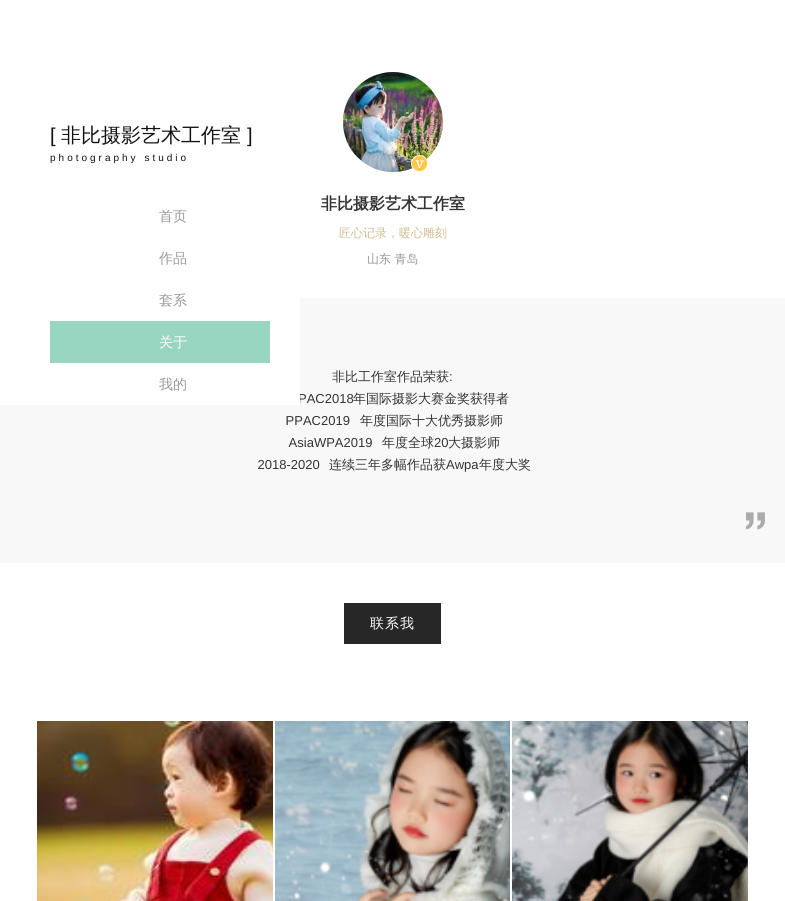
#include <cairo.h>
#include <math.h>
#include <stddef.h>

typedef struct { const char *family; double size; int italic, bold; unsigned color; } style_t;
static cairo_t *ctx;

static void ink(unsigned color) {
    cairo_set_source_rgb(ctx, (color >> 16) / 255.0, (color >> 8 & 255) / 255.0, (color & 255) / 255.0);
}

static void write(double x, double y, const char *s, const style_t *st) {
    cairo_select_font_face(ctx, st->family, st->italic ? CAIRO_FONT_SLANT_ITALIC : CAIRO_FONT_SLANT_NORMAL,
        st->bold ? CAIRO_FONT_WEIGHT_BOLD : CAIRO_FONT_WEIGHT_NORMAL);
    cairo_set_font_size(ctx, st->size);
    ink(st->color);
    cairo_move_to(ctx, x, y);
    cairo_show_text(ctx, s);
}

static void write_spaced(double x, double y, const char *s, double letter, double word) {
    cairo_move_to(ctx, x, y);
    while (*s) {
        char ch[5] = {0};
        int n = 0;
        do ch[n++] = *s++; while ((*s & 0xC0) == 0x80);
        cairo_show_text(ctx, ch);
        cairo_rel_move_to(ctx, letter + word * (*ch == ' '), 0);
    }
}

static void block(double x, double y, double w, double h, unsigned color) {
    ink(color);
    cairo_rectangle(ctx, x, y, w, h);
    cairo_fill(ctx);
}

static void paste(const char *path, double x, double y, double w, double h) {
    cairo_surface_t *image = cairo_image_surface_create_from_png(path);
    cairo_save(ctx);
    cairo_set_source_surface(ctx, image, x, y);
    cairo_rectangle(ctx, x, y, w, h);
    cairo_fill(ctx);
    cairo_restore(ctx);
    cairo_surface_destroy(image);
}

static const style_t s1 = {"Liberation Sans", 13, 0, 0, 0x333333};
static const style_t s2 = {"Liberation Sans", 20, 0, 0, 0x111111};
static const style_t s3 = {"WenQuanYi Zen Hei Medium", 20, 0, 0, 0x111111};
static const style_t s4 = {"WenQuanYi Zen Hei Medium", 14, 0, 0, 0x999999};
static const style_t s5 = {"WenQuanYi Zen Hei Medium", 14, 0, 0, 0xffffff};
static const style_t s6 = {"WenQuanYi Zen Hei", 16, 0, 1, 0x333333};
static const style_t s7 = {"WenQuanYi Zen Hei Medium", 12, 0, 0, 0xcfbb90};
static const style_t s8 = {"WenQuanYi Zen Hei Medium", 12, 0, 0, 0x999999};
static const style_t s9 = {"WenQuanYi Zen Hei Medium", 13, 0, 0, 0x333333};

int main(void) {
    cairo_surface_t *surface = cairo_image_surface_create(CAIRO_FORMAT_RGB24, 785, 901);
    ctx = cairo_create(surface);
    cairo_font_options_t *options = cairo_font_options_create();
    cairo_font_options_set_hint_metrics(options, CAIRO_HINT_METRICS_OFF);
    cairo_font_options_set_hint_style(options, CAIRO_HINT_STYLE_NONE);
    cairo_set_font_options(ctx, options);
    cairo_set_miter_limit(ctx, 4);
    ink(0xffffff);
    cairo_paint(ctx);
    block(0, 298, 785, 265, 0xf8f8f8);
    write(298, 403, "PAC2018", &s1);
    block(0, 298, 300, 107, 0xffffff);
    write(50, 142, "[", &s2);
    write(61, 142, "非比摄影艺术工作室", &s3);
    write(247, 142, "]", &s2);
    cairo_set_font_size(ctx, 10);
    write_spaced(50, 161, "photography studio", 3, 0);
    write(159, 221, "首页", &s4);
    write(159, 263, "作品", &s4);
    write(159, 305, "套系", &s4);
    block(50, 321, 220, 42, 0x99d6c2);
    write(159, 347, "关于", &s5);
    write(159, 389, "我的", &s4);
    ink(0xcccccc);
    cairo_new_path(ctx);
    cairo_arc(ctx, 393, 122, 50, 0, 2 * M_PI);
    cairo_fill(ctx);
    paste("pic1.png", 343, 72, 100, 100);
    paste("pic2.png", 411, 155, 17, 17);
    write(321, 209, "非比摄影艺术工作室", &s6);
    write(339, 237, "匠心记录，暖心雕刻", &s7);
    write(367, 263, "山东 青岛", &s8);
    write(332, 381, "非比工作室作品荣获", &s9);
    write(449, 381, ":", &s1);
    write(353, 403, "年国际摄影大赛金奖获得者", &s9);
    write(282, 425, " PPAC2019", &s1);
    write(360, 425, "年度国际十大优秀摄影师", &s9);
    write(285, 447, " AsiaWPA2019", &s1);
    write(382, 447, "年度全球", &s9);
    write(434, 447, "20", &s1);
    write(448, 447, "大摄影师", &s9);
    write(254, 469, " 2018-2020", &s1);
    write(329, 469, "连续三年多幅作品获", &s9);
    write(446, 469, "Awpa", &s1);
    write(479, 469, "年度大奖", &s9);
    paste("pic3.png", 746, 512, 19, 18);
    block(344, 603, 97, 41, 0x272727);
    cairo_set_font_size(ctx, 14);
    ink(0xffffff);
    write_spaced(370, 628, "联系我", 1, 0);
    paste("pic4.png", 37, 721, 236, 180);
    paste("pic5.png", 275, 721, 235, 180);
    paste("pic6.png", 512, 721, 236, 180);
    cairo_surface_write_to_png(surface, "screenshot.png");
    cairo_font_options_destroy(options);
    cairo_destroy(ctx);
    cairo_surface_destroy(surface);
    return 0;
}
